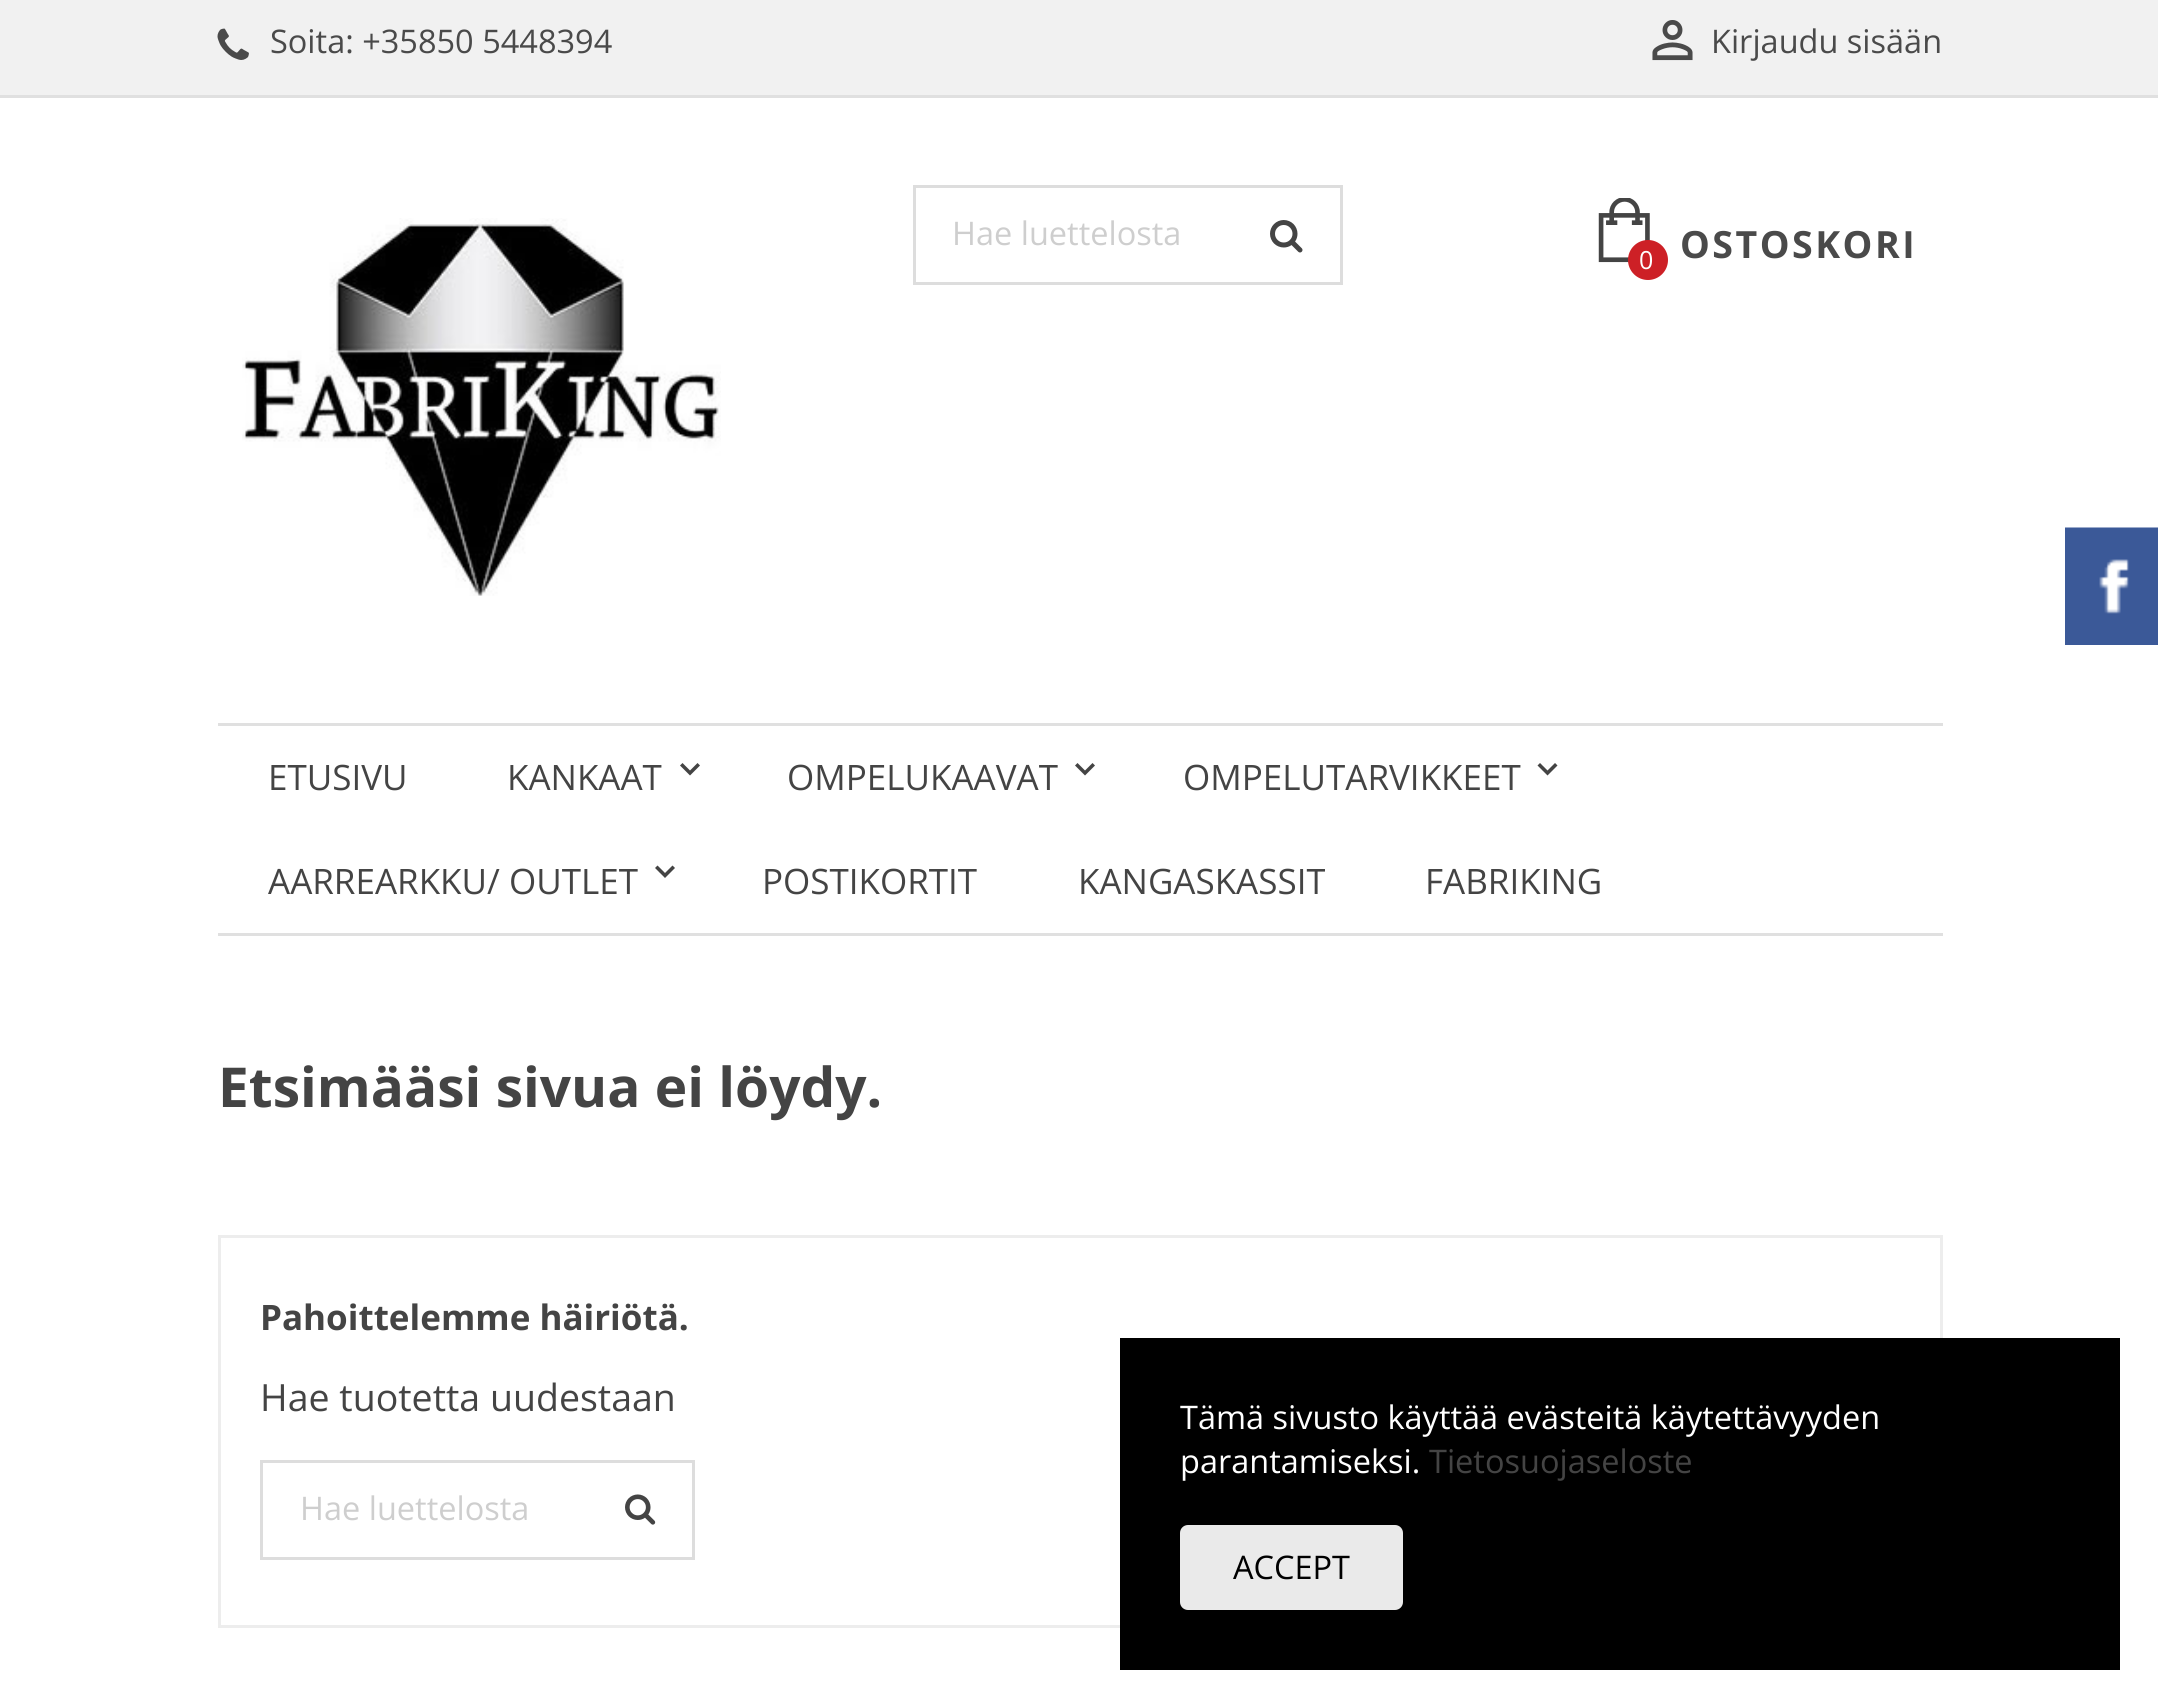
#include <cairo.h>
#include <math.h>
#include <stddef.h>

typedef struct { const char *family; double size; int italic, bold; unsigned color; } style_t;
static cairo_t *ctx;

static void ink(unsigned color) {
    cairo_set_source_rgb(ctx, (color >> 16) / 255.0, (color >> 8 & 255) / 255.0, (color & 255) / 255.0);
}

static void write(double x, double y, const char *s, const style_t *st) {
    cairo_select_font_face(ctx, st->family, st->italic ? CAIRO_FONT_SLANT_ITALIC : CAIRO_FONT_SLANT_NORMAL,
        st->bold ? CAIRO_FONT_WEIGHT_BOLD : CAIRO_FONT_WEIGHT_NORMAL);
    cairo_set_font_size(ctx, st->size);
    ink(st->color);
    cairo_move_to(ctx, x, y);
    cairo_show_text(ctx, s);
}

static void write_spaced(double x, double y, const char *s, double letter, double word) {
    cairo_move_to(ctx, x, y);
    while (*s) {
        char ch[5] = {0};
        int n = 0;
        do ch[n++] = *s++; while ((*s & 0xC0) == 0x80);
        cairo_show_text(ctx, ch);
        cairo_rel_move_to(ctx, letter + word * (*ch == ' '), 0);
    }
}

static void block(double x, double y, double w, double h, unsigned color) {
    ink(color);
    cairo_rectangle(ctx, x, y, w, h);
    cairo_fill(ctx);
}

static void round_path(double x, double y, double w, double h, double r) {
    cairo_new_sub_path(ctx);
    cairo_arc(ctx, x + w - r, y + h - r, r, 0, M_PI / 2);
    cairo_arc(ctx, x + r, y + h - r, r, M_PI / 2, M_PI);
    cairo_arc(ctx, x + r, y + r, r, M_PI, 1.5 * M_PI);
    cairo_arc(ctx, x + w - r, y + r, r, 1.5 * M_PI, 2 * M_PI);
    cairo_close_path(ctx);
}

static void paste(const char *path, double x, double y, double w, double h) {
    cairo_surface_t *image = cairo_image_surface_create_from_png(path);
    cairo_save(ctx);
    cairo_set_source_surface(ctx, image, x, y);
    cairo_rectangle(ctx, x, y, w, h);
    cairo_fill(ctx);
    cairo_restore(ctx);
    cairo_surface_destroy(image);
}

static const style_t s1 = {"Open Sans", 32.5, 0, 0, 0x4a4a4a};
static const style_t s2 = {"Open Sans", 32.5, 0, 0, 0xcecece};
static const style_t s3 = {"Open Sans", 25, 0, 0, 0xffffff};
static const style_t s4 = {"Open Sans", 35, 0, 0, 0x444444};
static const style_t s5 = {"Open Sans", 55, 0, 1, 0x444444};
static const style_t s6 = {"Open Sans", 35, 0, 1, 0x444444};
static const style_t s7 = {"Open Sans", 37.5, 0, 0, 0x444444};
static const style_t s8 = {"Open Sans", 32.5, 0, 0, 0xffffff};
static const style_t s9 = {"Open Sans", 32.5, 0, 0, 0x444444};
static const style_t s10 = {"Open Sans", 32.5, 0, 0, 0x000000};

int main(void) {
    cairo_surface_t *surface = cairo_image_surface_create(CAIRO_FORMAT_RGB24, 2158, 1708);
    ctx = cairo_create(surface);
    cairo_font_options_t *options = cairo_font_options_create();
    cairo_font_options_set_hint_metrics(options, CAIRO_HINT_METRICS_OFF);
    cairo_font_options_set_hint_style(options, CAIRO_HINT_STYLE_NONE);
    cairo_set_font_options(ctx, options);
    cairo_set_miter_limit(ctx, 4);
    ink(0xffffff);
    cairo_paint(ctx);
    block(0, 0, 2158, 95, 0xf1f1f1);
    block(0, 95, 2158, 3, 0xe0e0e0);
    paste("pic1.png", 217, 28, 32, 32);
    write(270, 53, "Soita: +35850 5448394", &s1);
    paste("pic2.png", 1652, 20, 41, 41);
    write(1711, 53, "Kirjaudu sisään", &s1);
    paste("pic3.png", 242, 218, 479, 378);
    cairo_rectangle(ctx, 914.5, 186.5, 427, 97);
    ink(0xdddddd);
    cairo_set_line_width(ctx, 3);
    cairo_stroke(ctx);
    write(952, 245, "Hae luettelosta", &s2);
    paste("pic4.png", 1270, 220, 33, 33);
    paste("pic5.png", 1598, 198, 52, 65);
    cairo_select_font_face(ctx, "Open Sans", CAIRO_FONT_SLANT_NORMAL, CAIRO_FONT_WEIGHT_BOLD);
    cairo_set_font_size(ctx, 37.5);
    ink(0x4a4a4a);
    write_spaced(1680, 258, "OSTOSKORI", 2.5, 0);
    ink(0xcd2026);
    cairo_new_path(ctx);
    cairo_arc(ctx, 1648, 260, 20, 0, 2 * M_PI);
    cairo_fill(ctx);
    write(1639, 269, "0", &s3);
    block(218, 723, 1725, 3, 0xe0e0e0);
    block(218, 933, 1725, 3, 0xe0e0e0);
    write(268, 790, "ETUSIVU", &s4);
    write(507, 790, "KANKAAT", &s4);
    cairo_new_path(ctx);
    cairo_move_to(ctx, 682.5, 763);
    cairo_line_to(ctx, 690, 770.5);
    cairo_line_to(ctx, 697.5, 763);
    cairo_line_to(ctx, 700, 765.5);
    cairo_line_to(ctx, 690, 775.5);
    cairo_line_to(ctx, 680, 765.5);
    cairo_close_path(ctx);
    cairo_fill(ctx);
    write(787, 790, "OMPELUKAAVAT", &s4);
    cairo_new_path(ctx);
    cairo_move_to(ctx, 1077.5, 763);
    cairo_line_to(ctx, 1085, 770.5);
    cairo_line_to(ctx, 1092.5, 763);
    cairo_line_to(ctx, 1095, 765.5);
    cairo_line_to(ctx, 1085, 775.5);
    cairo_line_to(ctx, 1075, 765.5);
    cairo_close_path(ctx);
    cairo_fill(ctx);
    write(1183, 790, "OMPELUTARVIKKEET", &s4);
    cairo_new_path(ctx);
    cairo_move_to(ctx, 1540, 763);
    cairo_line_to(ctx, 1547.5, 770.5);
    cairo_line_to(ctx, 1555, 763);
    cairo_line_to(ctx, 1557.5, 765.5);
    cairo_line_to(ctx, 1547.5, 775.5);
    cairo_line_to(ctx, 1537.5, 765.5);
    cairo_close_path(ctx);
    cairo_fill(ctx);
    write(268, 894, "AARREARKKU/ OUTLET", &s4);
    cairo_new_path(ctx);
    cairo_move_to(ctx, 657.5, 865.5);
    cairo_line_to(ctx, 665, 873);
    cairo_line_to(ctx, 672.5, 865.5);
    cairo_line_to(ctx, 675, 868);
    cairo_line_to(ctx, 665, 878);
    cairo_line_to(ctx, 655, 868);
    cairo_close_path(ctx);
    cairo_fill(ctx);
    write(762, 894, "POSTIKORTIT", &s4);
    write(1078, 894, "KANGASKASSIT", &s4);
    write(1425, 894, "FABRIKING", &s4);
    paste("pic6.png", 2065, 527, 93, 118);
    write(218, 1107, "Etsimääsi sivua ei löydy.", &s5);
    cairo_rectangle(ctx, 219.5, 1236.5, 1722, 390);
    ink(0xededed);
    cairo_stroke(ctx);
    write(260, 1330, "Pahoittelemme häiriötä.", &s6);
    write(260, 1411, "Hae tuotetta uudestaan", &s7);
    cairo_rectangle(ctx, 261.5, 1461.5, 432, 97);
    ink(0xdddddd);
    cairo_stroke(ctx);
    write(300, 1520, "Hae luettelosta", &s2);
    paste("pic7.png", 625, 1494, 31, 31);
    block(1120, 1338, 1000, 332, 0x000000);
    write(1180, 1429, "Tämä sivusto käyttää evästeitä käytettävyyden", &s8);
    write(1180, 1473, "parantamiseksi.", &s8);
    write(1429, 1473, "Tietosuojaseloste", &s9);
    ink(0xeaeaea);
    round_path(1180, 1525, 223, 85, 8);
    cairo_fill(ctx);
    write(1233, 1579, "ACCEPT", &s10);
    cairo_surface_write_to_png(surface, "screenshot.png");
    cairo_font_options_destroy(options);
    cairo_destroy(ctx);
    cairo_surface_destroy(surface);
    return 0;
}
